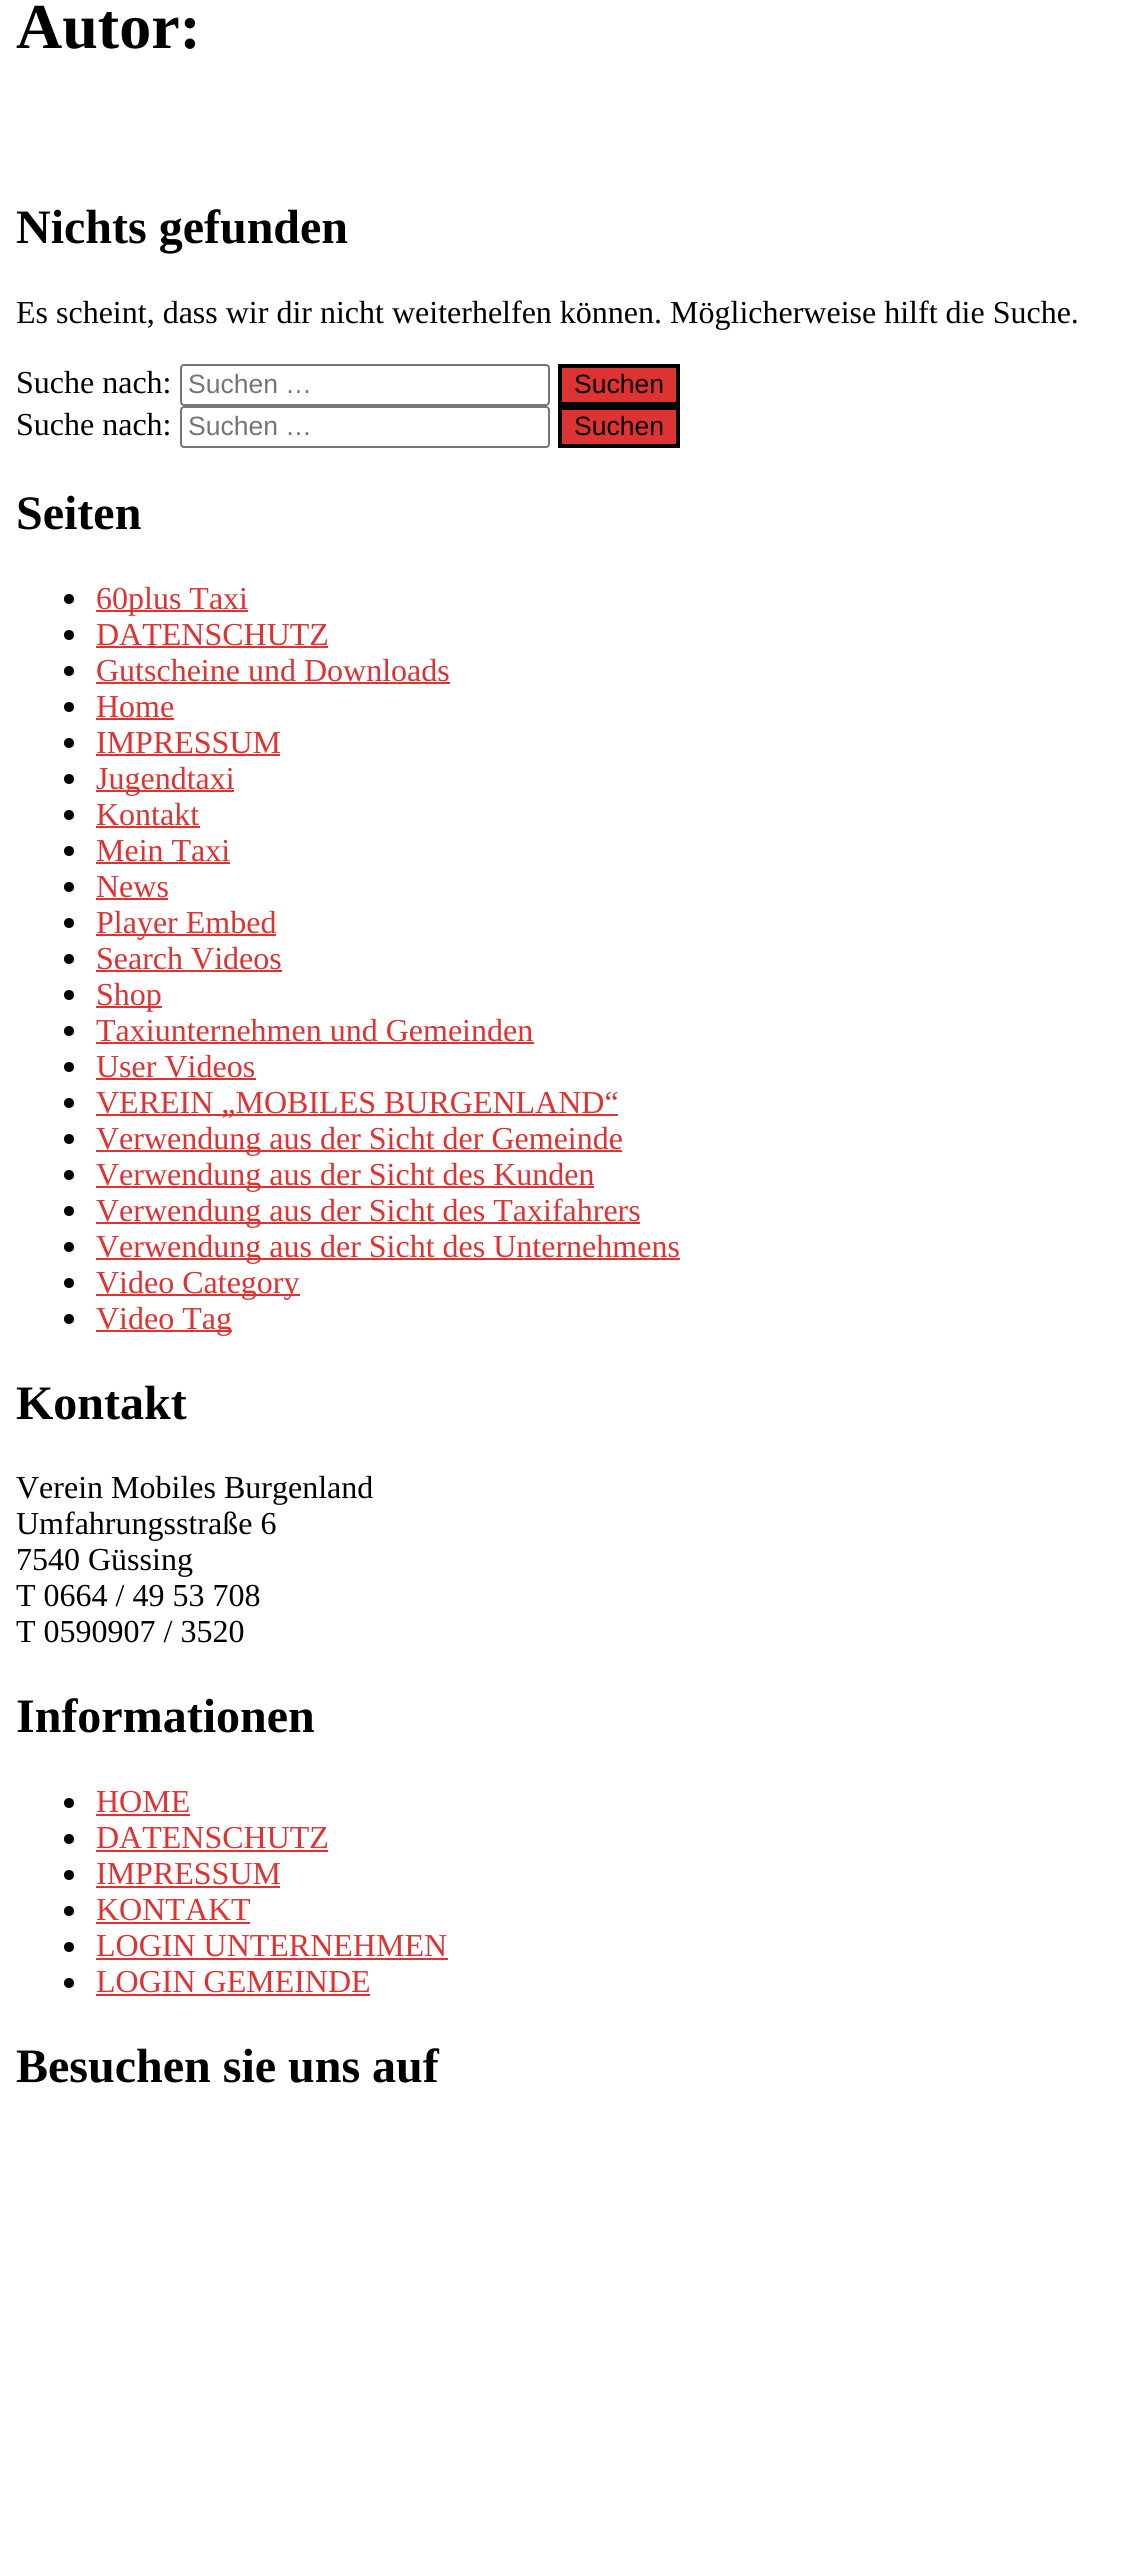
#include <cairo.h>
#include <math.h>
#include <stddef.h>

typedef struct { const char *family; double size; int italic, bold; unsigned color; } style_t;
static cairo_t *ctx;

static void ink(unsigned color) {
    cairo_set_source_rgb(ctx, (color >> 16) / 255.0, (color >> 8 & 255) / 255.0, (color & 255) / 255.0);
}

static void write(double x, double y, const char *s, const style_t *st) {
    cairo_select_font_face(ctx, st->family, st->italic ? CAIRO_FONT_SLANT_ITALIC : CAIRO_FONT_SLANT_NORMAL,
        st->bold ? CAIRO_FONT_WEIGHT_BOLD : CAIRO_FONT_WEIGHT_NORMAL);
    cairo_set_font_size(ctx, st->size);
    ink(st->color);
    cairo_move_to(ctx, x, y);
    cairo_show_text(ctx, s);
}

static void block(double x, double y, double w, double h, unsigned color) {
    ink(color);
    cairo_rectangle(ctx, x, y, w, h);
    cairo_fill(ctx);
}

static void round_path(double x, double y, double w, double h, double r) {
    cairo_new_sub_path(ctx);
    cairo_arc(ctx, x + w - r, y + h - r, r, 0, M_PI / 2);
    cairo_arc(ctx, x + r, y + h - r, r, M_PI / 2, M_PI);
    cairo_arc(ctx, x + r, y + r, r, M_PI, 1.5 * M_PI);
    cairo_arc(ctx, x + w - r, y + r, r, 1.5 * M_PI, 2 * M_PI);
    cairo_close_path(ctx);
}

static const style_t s1 = {"Liberation Serif", 64, 0, 1, 0x000000};
static const style_t s2 = {"Liberation Serif", 48, 0, 1, 0x000000};
static const style_t s3 = {"Liberation Serif", 32, 0, 0, 0x000000};
static const style_t s4 = {"Liberation Sans", 26.5, 0, 0, 0x757575};
static const style_t s5 = {"Liberation Sans", 26.5, 0, 0, 0x000000};
static const style_t s6 = {"Liberation Serif", 32, 0, 0, 0xdd3333};

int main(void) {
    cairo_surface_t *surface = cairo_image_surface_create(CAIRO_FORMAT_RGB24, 1130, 2569);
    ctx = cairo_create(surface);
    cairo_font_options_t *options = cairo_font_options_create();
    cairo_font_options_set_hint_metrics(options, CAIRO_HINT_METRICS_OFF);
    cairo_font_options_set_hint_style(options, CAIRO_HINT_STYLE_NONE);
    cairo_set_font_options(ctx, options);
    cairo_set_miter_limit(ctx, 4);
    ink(0xffffff);
    cairo_paint(ctx);
    write(16, 48, "Autor:", &s1);
    write(16, 243, "Nichts gefunden", &s2);
    write(16, 323, "Es scheint, dass wir dir nicht weiterhelfen können. Möglicherweise hilft die Suche.", &s3);
    write(16, 393, "Suche nach:", &s3);
    round_path(181, 365, 368, 40, 3);
    ink(0x767676);
    cairo_stroke(ctx);
    write(188, 393, "Suchen …", &s4);
    ink(0xdd3333);
    cairo_rectangle(ctx, 560, 366, 118, 38);
    cairo_fill_preserve(ctx);
    ink(0x000000);
    cairo_set_line_width(ctx, 4);
    cairo_stroke(ctx);
    write(574, 393, "Suchen", &s5);
    write(16, 435, "Suche nach:", &s3);
    round_path(181, 407, 368, 40, 3);
    ink(0x767676);
    cairo_set_line_width(ctx, 2);
    cairo_stroke(ctx);
    write(188, 435, "Suchen …", &s4);
    ink(0xdd3333);
    cairo_rectangle(ctx, 560, 408, 118, 38);
    cairo_fill_preserve(ctx);
    ink(0x000000);
    cairo_set_line_width(ctx, 4);
    cairo_stroke(ctx);
    write(574, 435, "Suchen", &s5);
    write(16, 529, "Seiten", &s2);
    cairo_new_path(ctx);
    cairo_arc(ctx, 69, 599, 5, 0, 2 * M_PI);
    cairo_fill(ctx);
    block(96, 610, 152, 2, 0xdd3333);
    write(96, 609, "60plus Taxi", &s6);
    ink(0x000000);
    cairo_new_path(ctx);
    cairo_arc(ctx, 69, 635, 5, 0, 2 * M_PI);
    cairo_fill(ctx);
    write(96, 645, "DATENSCHUTZ", &s6);
    block(96, 646, 232, 2, 0xdd3333);
    ink(0x000000);
    cairo_new_path(ctx);
    cairo_arc(ctx, 69, 671, 5, 0, 2 * M_PI);
    cairo_fill(ctx);
    write(96, 681, "Gutscheine und Downloads", &s6);
    block(96, 682, 354, 2, 0xdd3333);
    ink(0x000000);
    cairo_new_path(ctx);
    cairo_arc(ctx, 69, 707, 5, 0, 2 * M_PI);
    cairo_fill(ctx);
    write(96, 717, "Home", &s6);
    block(96, 718, 78, 2, 0xdd3333);
    ink(0x000000);
    cairo_new_path(ctx);
    cairo_arc(ctx, 69, 743, 5, 0, 2 * M_PI);
    cairo_fill(ctx);
    write(96, 753, "IMPRESSUM", &s6);
    block(96, 754, 184, 2, 0xdd3333);
    ink(0x000000);
    cairo_new_path(ctx);
    cairo_arc(ctx, 69, 779, 5, 0, 2 * M_PI);
    cairo_fill(ctx);
    block(96, 790, 138, 2, 0xdd3333);
    write(96, 789, "Jugendtaxi", &s6);
    ink(0x000000);
    cairo_new_path(ctx);
    cairo_arc(ctx, 69, 815, 5, 0, 2 * M_PI);
    cairo_fill(ctx);
    write(96, 825, "Kontakt", &s6);
    block(96, 826, 104, 2, 0xdd3333);
    ink(0x000000);
    cairo_new_path(ctx);
    cairo_arc(ctx, 69, 851, 5, 0, 2 * M_PI);
    cairo_fill(ctx);
    write(96, 861, "Mein Taxi", &s6);
    block(96, 862, 134, 2, 0xdd3333);
    ink(0x000000);
    cairo_new_path(ctx);
    cairo_arc(ctx, 69, 887, 5, 0, 2 * M_PI);
    cairo_fill(ctx);
    write(96, 897, "News", &s6);
    block(96, 898, 72, 2, 0xdd3333);
    ink(0x000000);
    cairo_new_path(ctx);
    cairo_arc(ctx, 69, 923, 5, 0, 2 * M_PI);
    cairo_fill(ctx);
    block(96, 934, 180, 2, 0xdd3333);
    write(96, 933, "Player Embed", &s6);
    ink(0x000000);
    cairo_new_path(ctx);
    cairo_arc(ctx, 69, 959, 5, 0, 2 * M_PI);
    cairo_fill(ctx);
    write(96, 969, "Search Videos", &s6);
    block(96, 970, 186, 2, 0xdd3333);
    ink(0x000000);
    cairo_new_path(ctx);
    cairo_arc(ctx, 69, 995, 5, 0, 2 * M_PI);
    cairo_fill(ctx);
    block(96, 1006, 66, 2, 0xdd3333);
    write(96, 1005, "Shop", &s6);
    ink(0x000000);
    cairo_new_path(ctx);
    cairo_arc(ctx, 69, 1031, 5, 0, 2 * M_PI);
    cairo_fill(ctx);
    write(96, 1041, "Taxiunternehmen und Gemeinden", &s6);
    block(96, 1042, 438, 2, 0xdd3333);
    ink(0x000000);
    cairo_new_path(ctx);
    cairo_arc(ctx, 69, 1067, 5, 0, 2 * M_PI);
    cairo_fill(ctx);
    write(96, 1077, "User Videos", &s6);
    block(96, 1078, 160, 2, 0xdd3333);
    ink(0x000000);
    cairo_new_path(ctx);
    cairo_arc(ctx, 69, 1103, 5, 0, 2 * M_PI);
    cairo_fill(ctx);
    block(96, 1114, 522, 2, 0xdd3333);
    write(96, 1113, "VEREIN „MOBILES BURGENLAND“", &s6);
    ink(0x000000);
    cairo_new_path(ctx);
    cairo_arc(ctx, 69, 1139, 5, 0, 2 * M_PI);
    cairo_fill(ctx);
    block(96, 1150, 526, 2, 0xdd3333);
    write(96, 1149, "Verwendung aus der Sicht der Gemeinde", &s6);
    ink(0x000000);
    cairo_new_path(ctx);
    cairo_arc(ctx, 69, 1175, 5, 0, 2 * M_PI);
    cairo_fill(ctx);
    block(96, 1186, 498, 2, 0xdd3333);
    write(96, 1185, "Verwendung aus der Sicht des Kunden", &s6);
    ink(0x000000);
    cairo_new_path(ctx);
    cairo_arc(ctx, 69, 1211, 5, 0, 2 * M_PI);
    cairo_fill(ctx);
    block(96, 1222, 544, 2, 0xdd3333);
    write(96, 1221, "Verwendung aus der Sicht des Taxifahrers", &s6);
    ink(0x000000);
    cairo_new_path(ctx);
    cairo_arc(ctx, 69, 1247, 5, 0, 2 * M_PI);
    cairo_fill(ctx);
    block(96, 1258, 584, 2, 0xdd3333);
    write(96, 1257, "Verwendung aus der Sicht des Unternehmens", &s6);
    ink(0x000000);
    cairo_new_path(ctx);
    cairo_arc(ctx, 69, 1283, 5, 0, 2 * M_PI);
    cairo_fill(ctx);
    block(96, 1294, 204, 2, 0xdd3333);
    write(96, 1293, "Video Category", &s6);
    ink(0x000000);
    cairo_new_path(ctx);
    cairo_arc(ctx, 69, 1319, 5, 0, 2 * M_PI);
    cairo_fill(ctx);
    block(96, 1330, 136, 2, 0xdd3333);
    write(96, 1329, "Video Tag", &s6);
    write(16, 1419, "Kontakt", &s2);
    write(16, 1498, "Verein Mobiles Burgenland", &s3);
    write(16, 1534, "Umfahrungsstraße 6", &s3);
    write(16, 1570, "7540 Güssing", &s3);
    write(16, 1606, "T 0664 / 49 53 708", &s3);
    write(16, 1642, "T 0590907 / 3520", &s3);
    write(16, 1732, "Informationen", &s2);
    cairo_new_path(ctx);
    cairo_arc(ctx, 69, 1803, 5, 0, 2 * M_PI);
    cairo_fill(ctx);
    write(96, 1812, "HOME", &s6);
    block(96, 1814, 94, 2, 0xdd3333);
    ink(0x000000);
    cairo_new_path(ctx);
    cairo_arc(ctx, 69, 1839, 5, 0, 2 * M_PI);
    cairo_fill(ctx);
    write(96, 1848, "DATENSCHUTZ", &s6);
    block(96, 1850, 232, 2, 0xdd3333);
    ink(0x000000);
    cairo_new_path(ctx);
    cairo_arc(ctx, 69, 1875, 5, 0, 2 * M_PI);
    cairo_fill(ctx);
    write(96, 1884, "IMPRESSUM", &s6);
    block(96, 1886, 184, 2, 0xdd3333);
    ink(0x000000);
    cairo_new_path(ctx);
    cairo_arc(ctx, 69, 1911, 5, 0, 2 * M_PI);
    cairo_fill(ctx);
    write(96, 1920, "KONTAKT", &s6);
    block(96, 1922, 154, 2, 0xdd3333);
    ink(0x000000);
    cairo_new_path(ctx);
    cairo_arc(ctx, 69, 1947, 5, 0, 2 * M_PI);
    cairo_fill(ctx);
    write(96, 1956, "LOGIN UNTERNEHMEN", &s6);
    block(96, 1958, 352, 2, 0xdd3333);
    ink(0x000000);
    cairo_new_path(ctx);
    cairo_arc(ctx, 69, 1983, 5, 0, 2 * M_PI);
    cairo_fill(ctx);
    write(96, 1992, "LOGIN GEMEINDE", &s6);
    block(96, 1994, 274, 2, 0xdd3333);
    write(16, 2082, "Besuchen sie uns auf", &s2);
    cairo_surface_write_to_png(surface, "screenshot.png");
    cairo_font_options_destroy(options);
    cairo_destroy(ctx);
    cairo_surface_destroy(surface);
    return 0;
}
